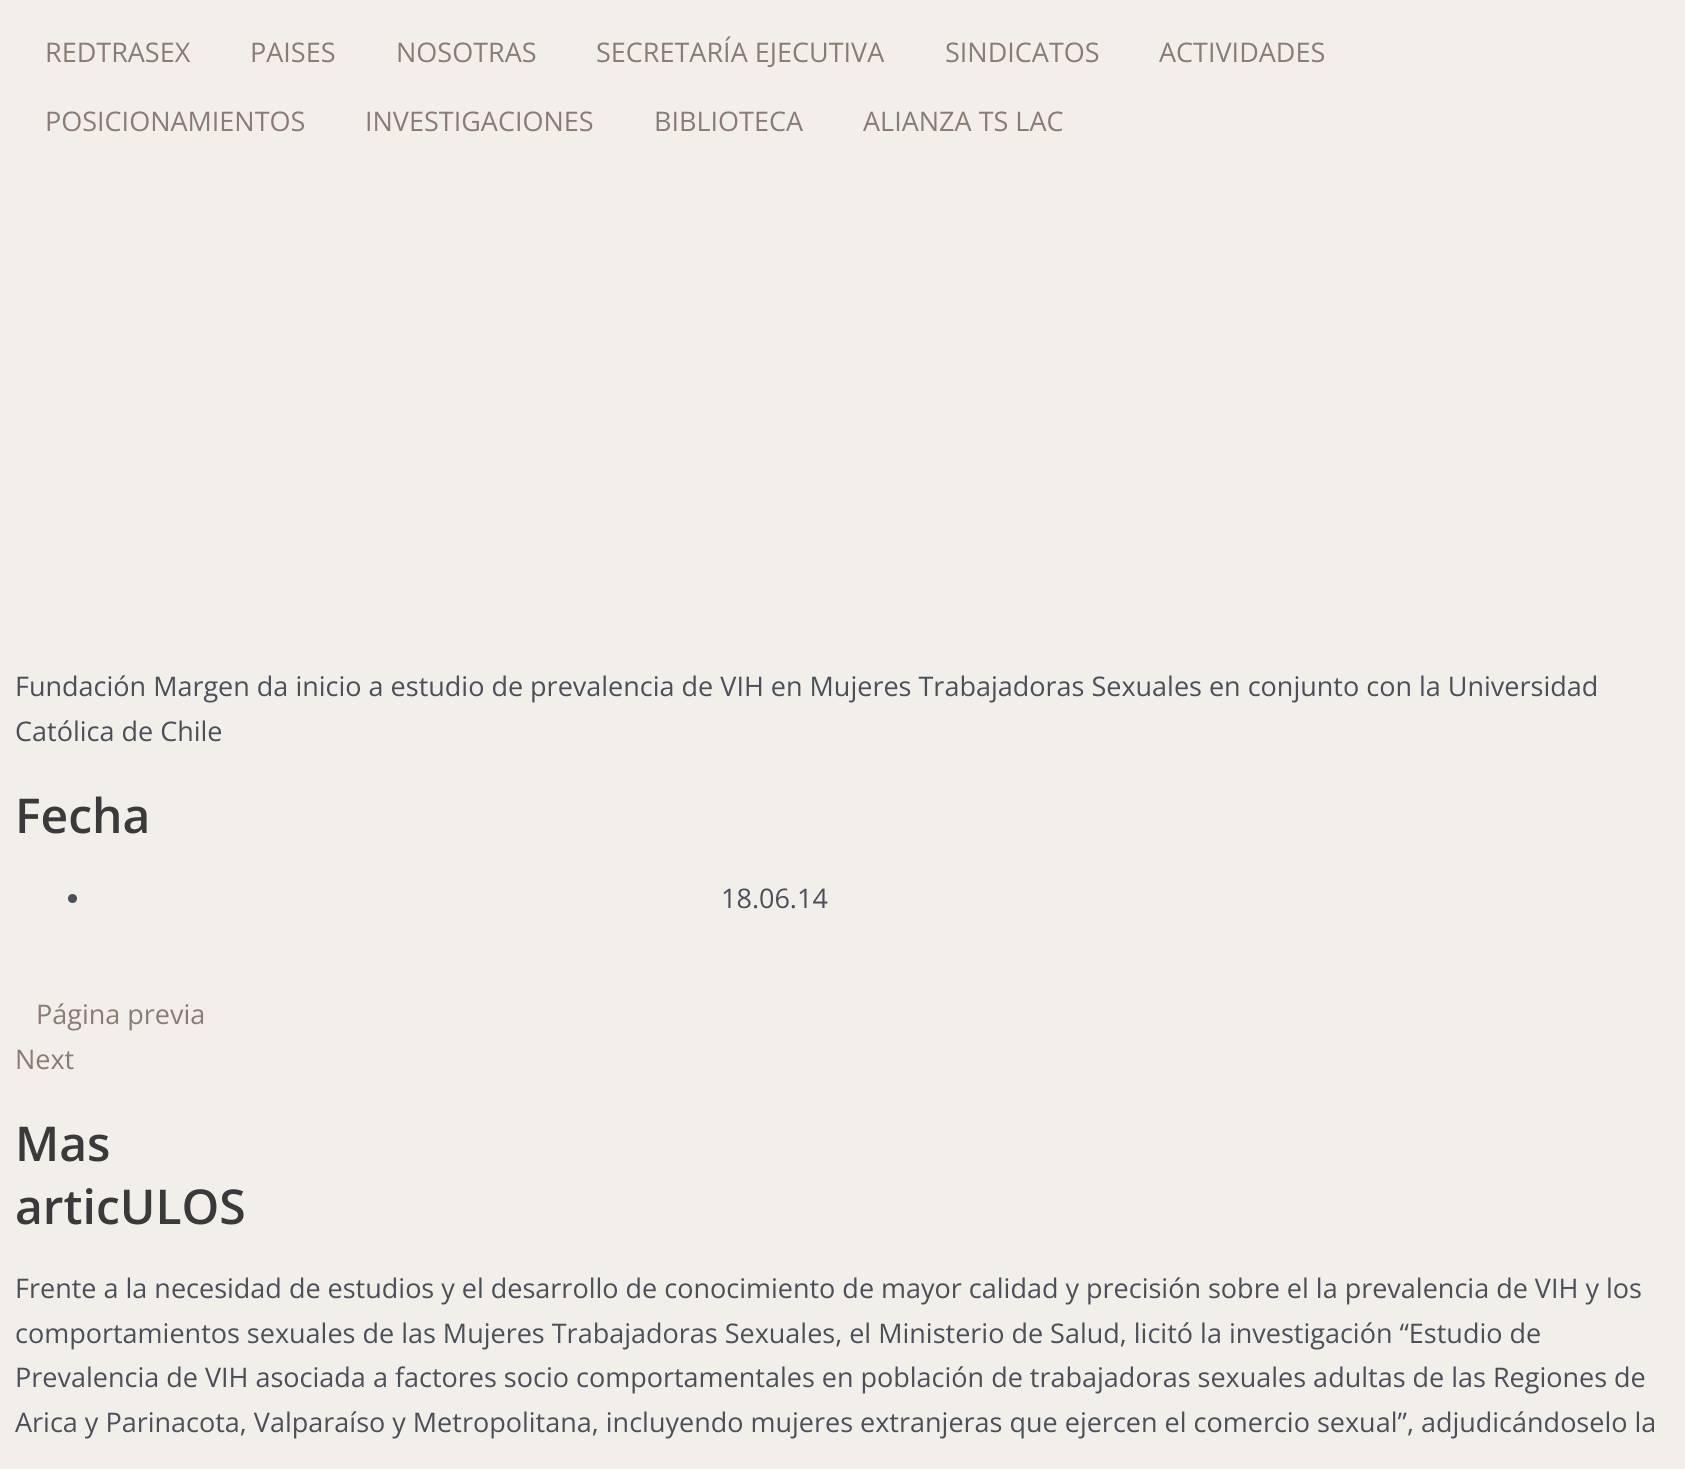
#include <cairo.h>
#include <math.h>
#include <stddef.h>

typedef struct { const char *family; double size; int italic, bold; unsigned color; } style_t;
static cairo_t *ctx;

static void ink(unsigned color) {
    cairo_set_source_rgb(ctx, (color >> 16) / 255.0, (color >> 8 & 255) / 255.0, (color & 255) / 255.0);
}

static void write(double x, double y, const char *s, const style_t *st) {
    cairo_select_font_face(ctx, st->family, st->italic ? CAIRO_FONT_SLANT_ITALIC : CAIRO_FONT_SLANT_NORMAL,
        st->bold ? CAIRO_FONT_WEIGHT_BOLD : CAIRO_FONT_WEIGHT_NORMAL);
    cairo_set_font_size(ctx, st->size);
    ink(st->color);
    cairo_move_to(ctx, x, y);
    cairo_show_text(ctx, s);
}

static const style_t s1 = {"Open Sans", 27, 0, 0, 0x8a7c73};
static const style_t s2 = {"Open Sans", 27, 0, 0, 0x4b4f58};
static const style_t s3 = {"Open Sans SemiBold", 48, 0, 0, 0x3a3a3a};

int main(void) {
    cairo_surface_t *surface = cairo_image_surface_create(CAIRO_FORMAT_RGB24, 1685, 1469);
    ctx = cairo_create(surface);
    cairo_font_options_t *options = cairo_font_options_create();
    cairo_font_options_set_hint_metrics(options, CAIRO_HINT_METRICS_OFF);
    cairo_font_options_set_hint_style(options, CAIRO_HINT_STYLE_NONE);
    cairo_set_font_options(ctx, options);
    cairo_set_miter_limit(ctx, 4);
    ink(0xf2efeb);
    cairo_paint(ctx);
    write(45, 62, "REDTRASEX", &s1);
    write(250, 62, "PAISES", &s1);
    write(396, 62, "NOSOTRAS", &s1);
    write(596, 62, "SECRETARÍA EJECUTIVA", &s1);
    write(945, 62, "SINDICATOS", &s1);
    write(1159, 62, "ACTIVIDADES", &s1);
    write(45, 131, "POSICIONAMIENTOS", &s1);
    write(365, 131, "INVESTIGACIONES", &s1);
    write(654, 131, "BIBLIOTECA", &s1);
    write(863, 131, "ALIANZA TS LAC", &s1);
    write(15, 696, "Fundación Margen da inicio a estudio de prevalencia de VIH en Mujeres Trabajadoras Sexuales en conjunto con la Universidad", &s2);
    write(15, 741, "Católica de Chile", &s2);
    write(15, 833, "Fecha", &s3);
    ink(0x4b4f58);
    cairo_new_path(ctx);
    cairo_arc(ctx, 72.5, 898.5, 4.5, 0, 2 * M_PI);
    cairo_fill(ctx);
    write(721, 908, "18.06.14", &s2);
    write(36, 1024, "Página previa", &s1);
    write(15, 1069, "Next", &s1);
    write(15, 1161, "Mas", &s3);
    write(15, 1224, "articULOS", &s3);
    write(15, 1298, "Frente a la necesidad de estudios y el desarrollo de conocimiento de mayor calidad y precisión sobre el la prevalencia de VIH y los", &s2);
    write(15, 1343, "comportamientos sexuales de las Mujeres Trabajadoras Sexuales, el Ministerio de Salud, licitó la investigación “Estudio de", &s2);
    write(15, 1387, "Prevalencia de VIH asociada a factores socio comportamentales en población de trabajadoras sexuales adultas de las Regiones de", &s2);
    write(15, 1432, "Arica y Parinacota, Valparaíso y Metropolitana, incluyendo mujeres extranjeras que ejercen el comercio sexual”, adjudicándoselo la", &s2);
    cairo_surface_write_to_png(surface, "screenshot.png");
    cairo_font_options_destroy(options);
    cairo_destroy(ctx);
    cairo_surface_destroy(surface);
    return 0;
}
